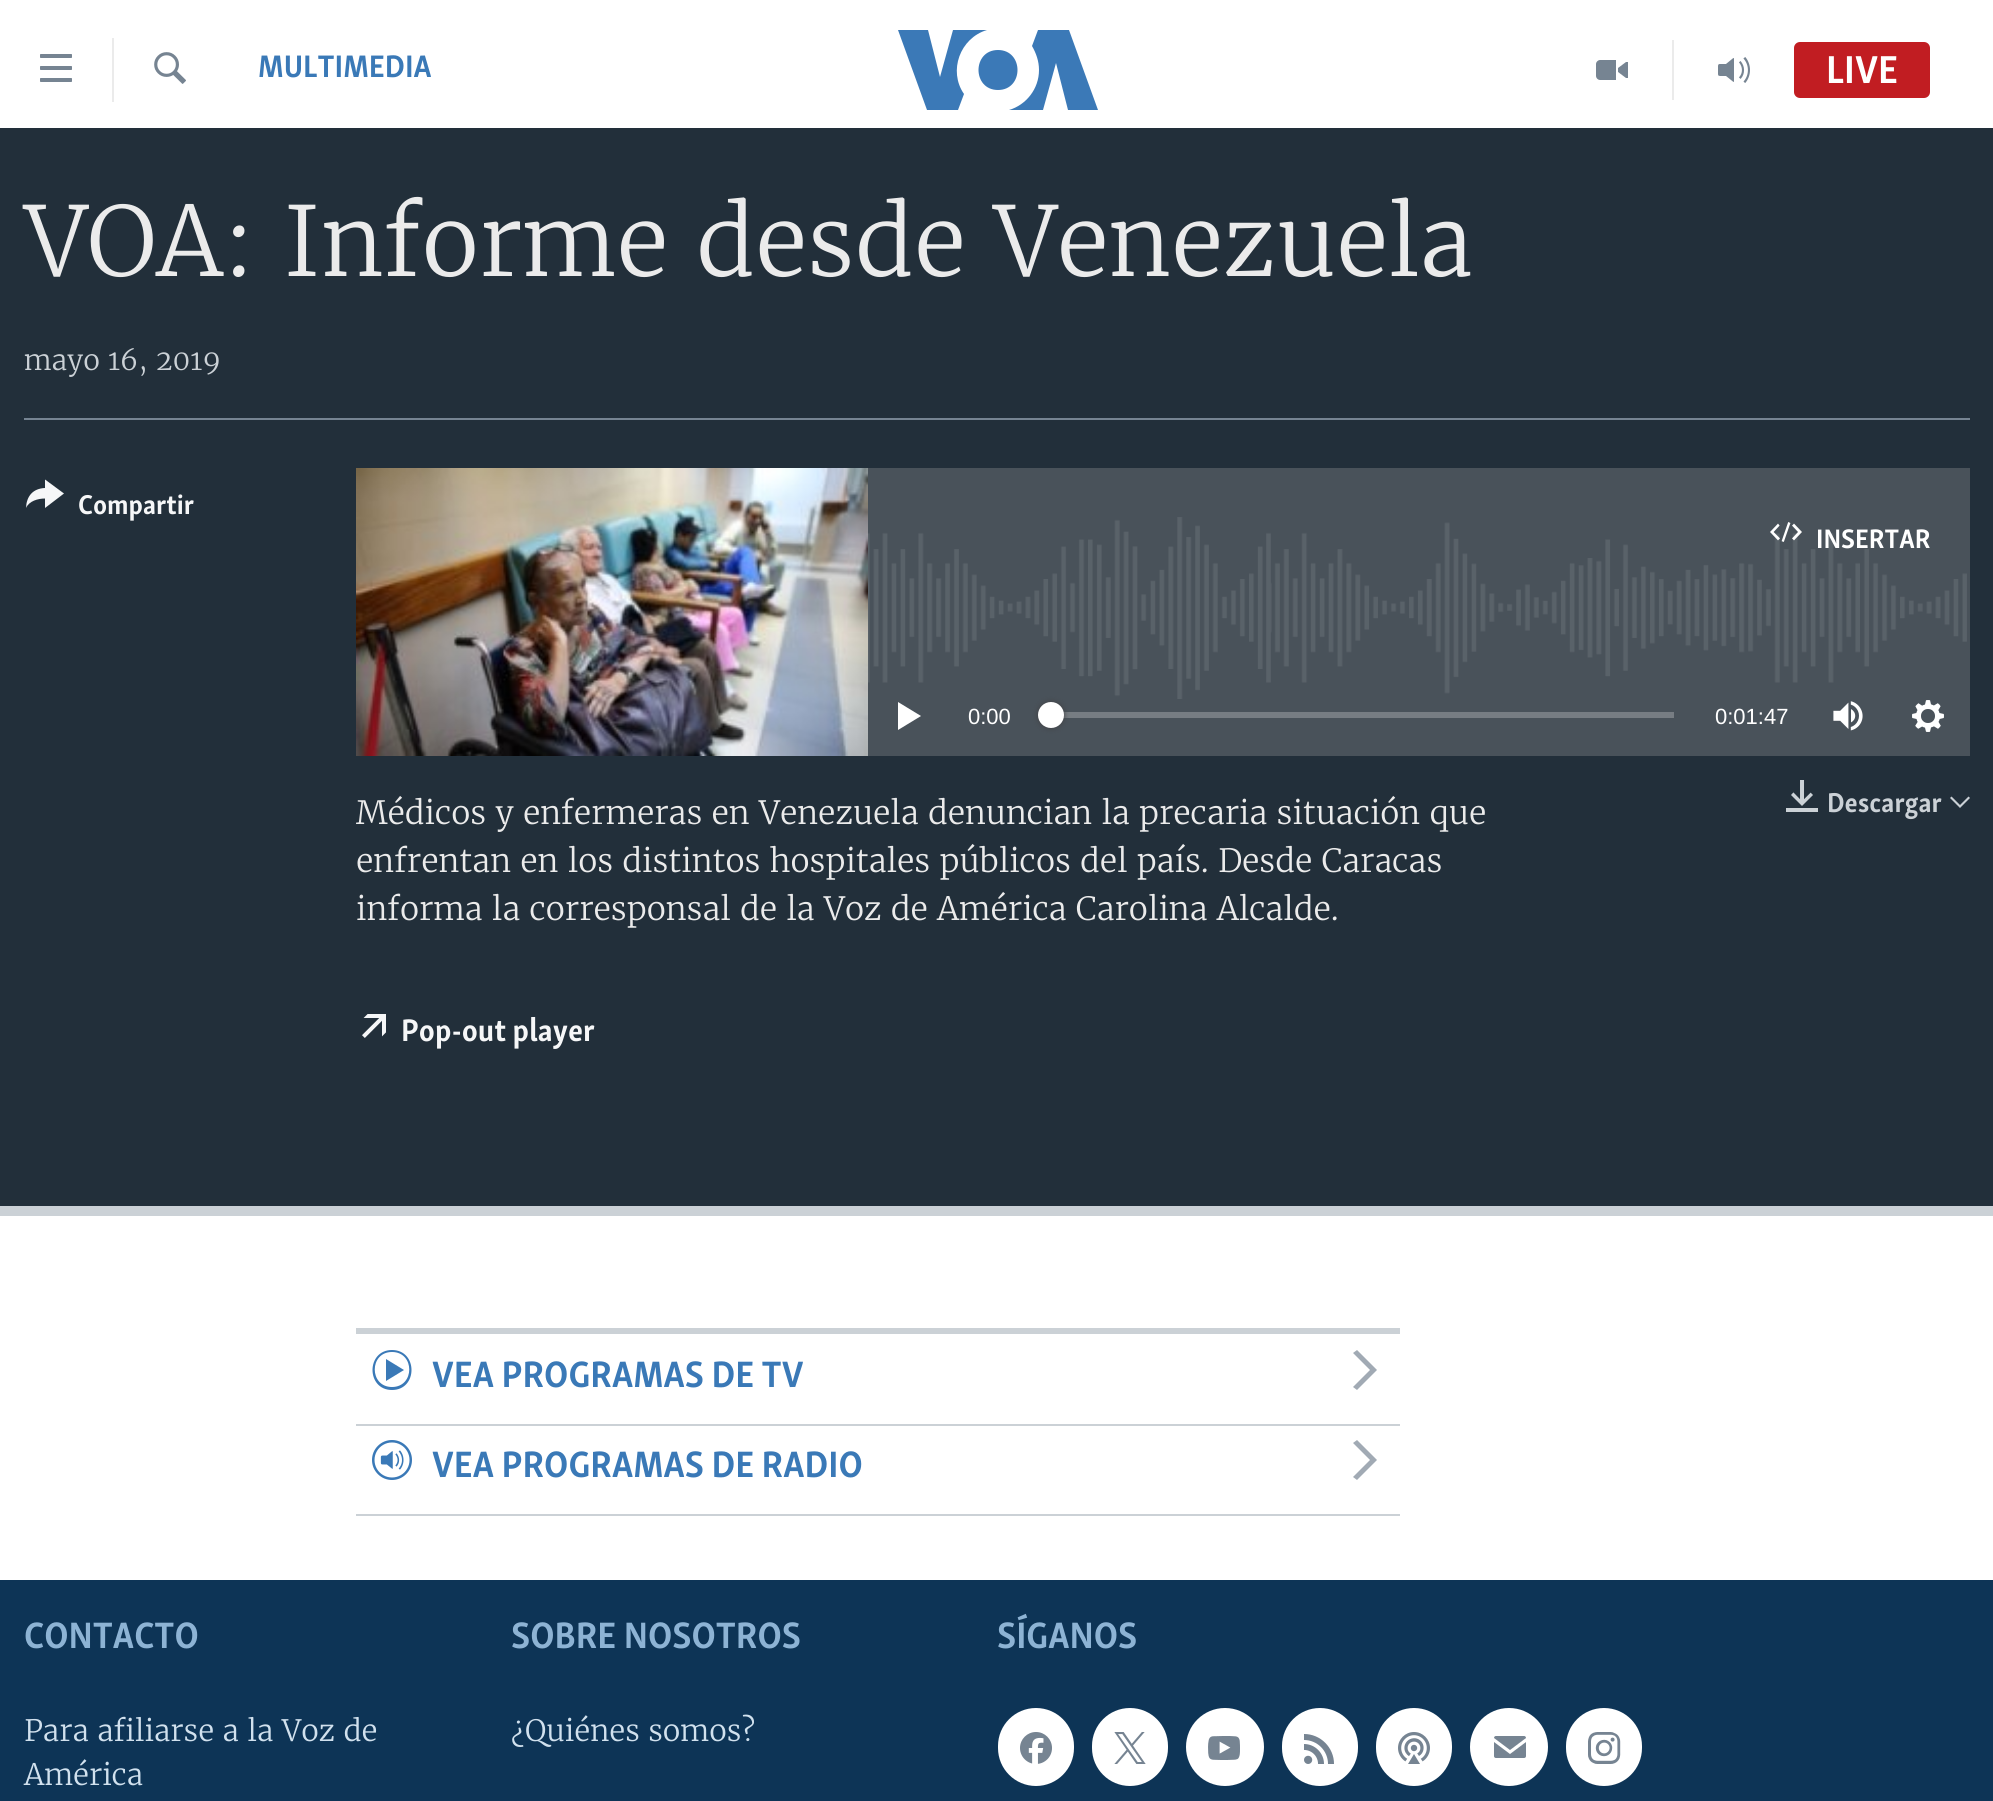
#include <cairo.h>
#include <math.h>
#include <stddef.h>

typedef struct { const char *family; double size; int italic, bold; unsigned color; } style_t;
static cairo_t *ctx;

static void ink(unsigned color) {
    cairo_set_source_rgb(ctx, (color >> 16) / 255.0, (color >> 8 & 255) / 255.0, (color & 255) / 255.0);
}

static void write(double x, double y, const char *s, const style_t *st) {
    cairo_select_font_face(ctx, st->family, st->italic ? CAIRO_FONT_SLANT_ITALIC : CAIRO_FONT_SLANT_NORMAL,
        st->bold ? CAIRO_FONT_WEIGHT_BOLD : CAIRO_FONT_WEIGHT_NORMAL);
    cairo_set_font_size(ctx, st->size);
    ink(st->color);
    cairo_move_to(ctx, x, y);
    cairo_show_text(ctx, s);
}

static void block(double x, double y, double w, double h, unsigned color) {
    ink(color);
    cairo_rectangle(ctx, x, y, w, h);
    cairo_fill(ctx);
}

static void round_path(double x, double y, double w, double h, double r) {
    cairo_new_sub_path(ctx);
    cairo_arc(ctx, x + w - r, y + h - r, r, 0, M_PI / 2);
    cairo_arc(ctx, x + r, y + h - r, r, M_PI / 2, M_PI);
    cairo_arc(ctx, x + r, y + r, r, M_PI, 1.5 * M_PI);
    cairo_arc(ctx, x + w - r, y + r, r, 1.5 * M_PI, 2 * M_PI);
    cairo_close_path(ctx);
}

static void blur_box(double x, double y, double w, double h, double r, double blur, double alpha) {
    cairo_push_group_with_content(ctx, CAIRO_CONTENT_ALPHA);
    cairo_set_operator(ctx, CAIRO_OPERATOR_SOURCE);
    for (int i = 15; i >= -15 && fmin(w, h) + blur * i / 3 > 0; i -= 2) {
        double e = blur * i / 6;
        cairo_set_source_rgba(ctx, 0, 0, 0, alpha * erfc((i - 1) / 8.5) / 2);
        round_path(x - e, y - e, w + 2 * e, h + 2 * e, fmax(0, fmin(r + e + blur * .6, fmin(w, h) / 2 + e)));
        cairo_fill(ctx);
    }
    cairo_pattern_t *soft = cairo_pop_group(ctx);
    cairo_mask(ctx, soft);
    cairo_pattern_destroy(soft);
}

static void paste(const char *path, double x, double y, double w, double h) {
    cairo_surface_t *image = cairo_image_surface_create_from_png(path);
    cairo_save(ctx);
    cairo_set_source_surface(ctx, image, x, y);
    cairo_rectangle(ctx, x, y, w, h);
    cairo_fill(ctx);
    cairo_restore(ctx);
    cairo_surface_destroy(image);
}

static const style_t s1 = {"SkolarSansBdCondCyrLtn", 32, 0, 1, 0x3a79b7};
static const style_t s2 = {"SkolarSansBdCondCyrLtn", 40, 0, 1, 0xffffff};
static const style_t s3 = {"Merriweather Light", 96, 0, 0, 0xebebeb};
static const style_t s4 = {"Merriweather Light", 28, 0, 0, 0xcbd1d6};
static const style_t s5 = {"SkolarSansBdCondCyrLtn", 28, 0, 1, 0xf6f7f8};
static const style_t s6 = {"SkolarSansBdCondCyrLtn", 27.5, 0, 1, 0xffffff};
static const style_t s7 = {"Liberation Sans", 22, 0, 0, 0xffffff};
static const style_t s8 = {"Merriweather Light", 32, 0, 0, 0xebebeb};
static const style_t s9 = {"SkolarSansBdCondCyrLtn", 28, 0, 1, 0xcbd1d6};
static const style_t s10 = {"SkolarSansBdCondCyrLtn", 32, 0, 1, 0xf6f7f8};
static const style_t s11 = {"SkolarSansBdCondCyrLtn", 37.75, 0, 1, 0x3a79b7};
static const style_t s12 = {"SkolarSansBdCondCyrLtn", 37.75, 0, 1, 0x8db3d4};
static const style_t s13 = {"Merriweather Light", 29.4, 0, 0, 0xd1e1ee};

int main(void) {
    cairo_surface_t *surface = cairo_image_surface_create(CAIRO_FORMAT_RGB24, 1993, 1801);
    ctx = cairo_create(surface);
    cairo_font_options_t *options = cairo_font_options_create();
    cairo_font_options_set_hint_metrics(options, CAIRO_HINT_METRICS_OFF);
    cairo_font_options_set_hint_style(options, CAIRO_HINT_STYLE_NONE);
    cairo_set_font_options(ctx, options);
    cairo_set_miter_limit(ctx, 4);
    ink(0xffffff);
    cairo_paint(ctx);
    paste("pic1.png", 40, 54, 32, 28);
    block(112, 38, 2, 64, 0xebebeb);
    paste("pic2.png", 154, 52, 32, 32);
    write(258, 77, "MULTIMEDIA", &s1);
    ink(0x3b79b7);
    cairo_new_path(ctx);
    cairo_move_to(ctx, 964, 94);
    cairo_line_to(ctx, 958, 110);
    cairo_line_to(ctx, 927, 110);
    cairo_line_to(ctx, 898, 30);
    cairo_line_to(ctx, 928, 30);
    cairo_line_to(ctx, 940, 77);
    cairo_line_to(ctx, 953, 30);
    cairo_line_to(ctx, 987, 30);
    cairo_curve_to(ctx, 960, 38, 948, 71, 964, 94);
    cairo_close_path(ctx);
    cairo_move_to(ctx, 998, 50);
    cairo_curve_to(ctx, 972, 50, 972, 90, 998, 90);
    cairo_curve_to(ctx, 1024, 90, 1024, 50, 998, 50);
    cairo_close_path(ctx);
    cairo_move_to(ctx, 1039, 70);
    cairo_curve_to(ctx, 1039, 89, 1026, 105, 1009, 110);
    cairo_line_to(ctx, 1043, 110);
    cairo_line_to(ctx, 1056, 63);
    cairo_line_to(ctx, 1068, 110);
    cairo_line_to(ctx, 1098, 110);
    cairo_line_to(ctx, 1069, 30);
    cairo_line_to(ctx, 1038, 30);
    cairo_line_to(ctx, 1032, 46);
    cairo_curve_to(ctx, 1036, 53, 1039, 61, 1039, 70);
    cairo_close_path(ctx);
    cairo_fill(ctx);
    block(1672, 40, 2, 60, 0xebebeb);
    paste("pic3.png", 1596, 60, 32, 20);
    paste("pic4.png", 1718, 57, 32, 26);
    ink(0xc11d22);
    round_path(1794, 42, 136, 56, 6);
    cairo_fill(ctx);
    write(1826, 83, "LIVE", &s2);
    block(0, 128, 1993, 1078, 0x222f3a);
    block(0, 1206, 1993, 10, 0xcbd1d6);
    write(24, 276, "VOA: Informe desde Venezuela", &s3);
    write(24, 370, "mayo 16, 2019", &s4);
    block(24, 418, 1946, 2, 0x768492);
    ink(0xf6f7f8);
    cairo_new_path(ctx);
    cairo_move_to(ctx, 26, 508);
    cairo_curve_to(ctx, 26.5, 496, 33, 488.5, 45, 488);
    cairo_line_to(ctx, 45, 479.5);
    cairo_line_to(ctx, 64, 493.5);
    cairo_line_to(ctx, 45, 508);
    cairo_line_to(ctx, 45, 498.5);
    cairo_curve_to(ctx, 38, 498.5, 29, 501, 26, 508);
    cairo_close_path(ctx);
    cairo_fill(ctx);
    write(78, 514, "Compartir", &s5);
    block(868, 468, 1102, 288, 0x49525a);
    paste("pic5.png", 868, 517, 1099, 182);
    paste("pic6.png", 356, 468, 512, 288);
    paste("pic7.png", 1770, 522, 32, 20);
    write(1816, 548, "INSERTAR", &s6);
    cairo_new_path(ctx);
    cairo_move_to(ctx, 898, 730);
    cairo_line_to(ctx, 921, 716);
    cairo_line_to(ctx, 898, 702);
    cairo_close_path(ctx);
    cairo_fill(ctx);
    write(968, 724, "0:00", &s7);
    block(1063, 712, 611, 6, 0x777d83);
    ink(0x414144);
    blur_box(1038, 702, 26, 26, 13, 3, 1);
    ink(0xffffff);
    cairo_arc(ctx, 1051, 715, 13, 0, 2 * M_PI);
    cairo_fill(ctx);
    write(1715, 724, "0:01:47", &s7);
    paste("pic8.png", 1833, 701, 30, 30);
    paste("pic9.png", 1912, 700, 32, 32);
    write(356, 824, "Médicos y enfermeras en Venezuela denuncian la precaria situación que", &s8);
    write(356, 872, "enfrentan en los distintos hospitales públicos del país. Desde Caracas", &s8);
    write(356, 920, "informa la corresponsal de la Voz de América Carolina Alcalde.", &s8);
    paste("pic10.png", 1786, 780, 32, 32);
    write(1827, 812, "Descargar", &s9);
    cairo_new_path(ctx);
    cairo_move_to(ctx, 1950, 798);
    cairo_line_to(ctx, 1960, 808);
    cairo_line_to(ctx, 1970, 798);
    cairo_line_to(ctx, 1968.5, 796.5);
    cairo_line_to(ctx, 1960, 805);
    cairo_line_to(ctx, 1951.5, 796.5);
    cairo_close_path(ctx);
    cairo_fill(ctx);
    paste("pic11.png", 362, 1014, 24, 24);
    write(401, 1041, "Pop-out player", &s10);
    block(356, 1328, 1044, 6, 0xcbd1d6);
    block(356, 1424, 1044, 2, 0xcbd1d6);
    ink(0x3a79b7);
    cairo_new_path(ctx);
    cairo_move_to(ctx, 386, 1381);
    cairo_line_to(ctx, 404, 1370);
    cairo_line_to(ctx, 386, 1359);
    cairo_close_path(ctx);
    cairo_move_to(ctx, 392, 1352);
    cairo_curve_to(ctx, 415, 1352, 415, 1387, 392, 1387);
    cairo_curve_to(ctx, 369, 1387, 369, 1352, 392, 1352);
    cairo_close_path(ctx);
    cairo_move_to(ctx, 392, 1350);
    cairo_curve_to(ctx, 366, 1350, 366, 1390, 392, 1390);
    cairo_curve_to(ctx, 418, 1390, 418, 1350, 392, 1350);
    cairo_close_path(ctx);
    cairo_fill(ctx);
    write(432, 1387, "VEA PROGRAMAS DE TV", &s11);
    ink(0xa1aab4);
    cairo_new_path(ctx);
    cairo_move_to(ctx, 1357, 1390);
    cairo_line_to(ctx, 1377, 1370);
    cairo_line_to(ctx, 1357, 1350);
    cairo_line_to(ctx, 1353, 1353);
    cairo_line_to(ctx, 1370, 1370);
    cairo_line_to(ctx, 1353, 1387);
    cairo_close_path(ctx);
    cairo_fill(ctx);
    block(356, 1514, 1044, 2, 0xcbd1d6);
    paste("pic12.png", 372, 1440, 40, 40);
    write(432, 1477, "VEA PROGRAMAS DE RADIO", &s11);
    ink(0xa1aab4);
    cairo_new_path(ctx);
    cairo_move_to(ctx, 1357, 1480);
    cairo_line_to(ctx, 1377, 1460);
    cairo_line_to(ctx, 1357, 1440);
    cairo_line_to(ctx, 1353, 1443);
    cairo_line_to(ctx, 1370, 1460);
    cairo_line_to(ctx, 1353, 1477);
    cairo_close_path(ctx);
    cairo_fill(ctx);
    block(0, 1580, 1993, 221, 0x0d3456);
    write(24, 1648, "CONTACTO", &s12);
    write(24, 1741, "Para afiliarse a la Voz de", &s13);
    write(24, 1785, "América", &s13);
    write(511, 1648, "SOBRE NOSOTROS", &s12);
    write(511, 1741, "¿Quiénes somos?", &s13);
    write(997, 1648, "SÍGANOS", &s12);
    ink(0xffffff);
    round_path(998, 1708, 76, 78, 38);
    cairo_fill(ctx);
    paste("pic13.png", 1020, 1732, 32, 32);
    round_path(1092, 1708, 76, 78, 38);
    cairo_fill(ctx);
    paste("pic14.png", 1114, 1732, 32, 32);
    cairo_arc(ctx, 1225, 1747, 39, 0, 2 * M_PI);
    cairo_fill(ctx);
    paste("pic15.png", 1208, 1736, 32, 24);
    round_path(1282, 1708, 76, 78, 38);
    cairo_fill(ctx);
    paste("pic16.png", 1304, 1734, 30, 30);
    round_path(1376, 1708, 76, 78, 38);
    cairo_fill(ctx);
    paste("pic17.png", 1398, 1732, 32, 32);
    cairo_arc(ctx, 1509, 1747, 39, 0, 2 * M_PI);
    cairo_fill(ctx);
    paste("pic18.png", 1494, 1736, 32, 22);
    round_path(1566, 1708, 76, 78, 38);
    cairo_fill(ctx);
    paste("pic19.png", 1588, 1732, 33, 32);
    cairo_surface_write_to_png(surface, "screenshot.png");
    cairo_font_options_destroy(options);
    cairo_destroy(ctx);
    cairo_surface_destroy(surface);
    return 0;
}
